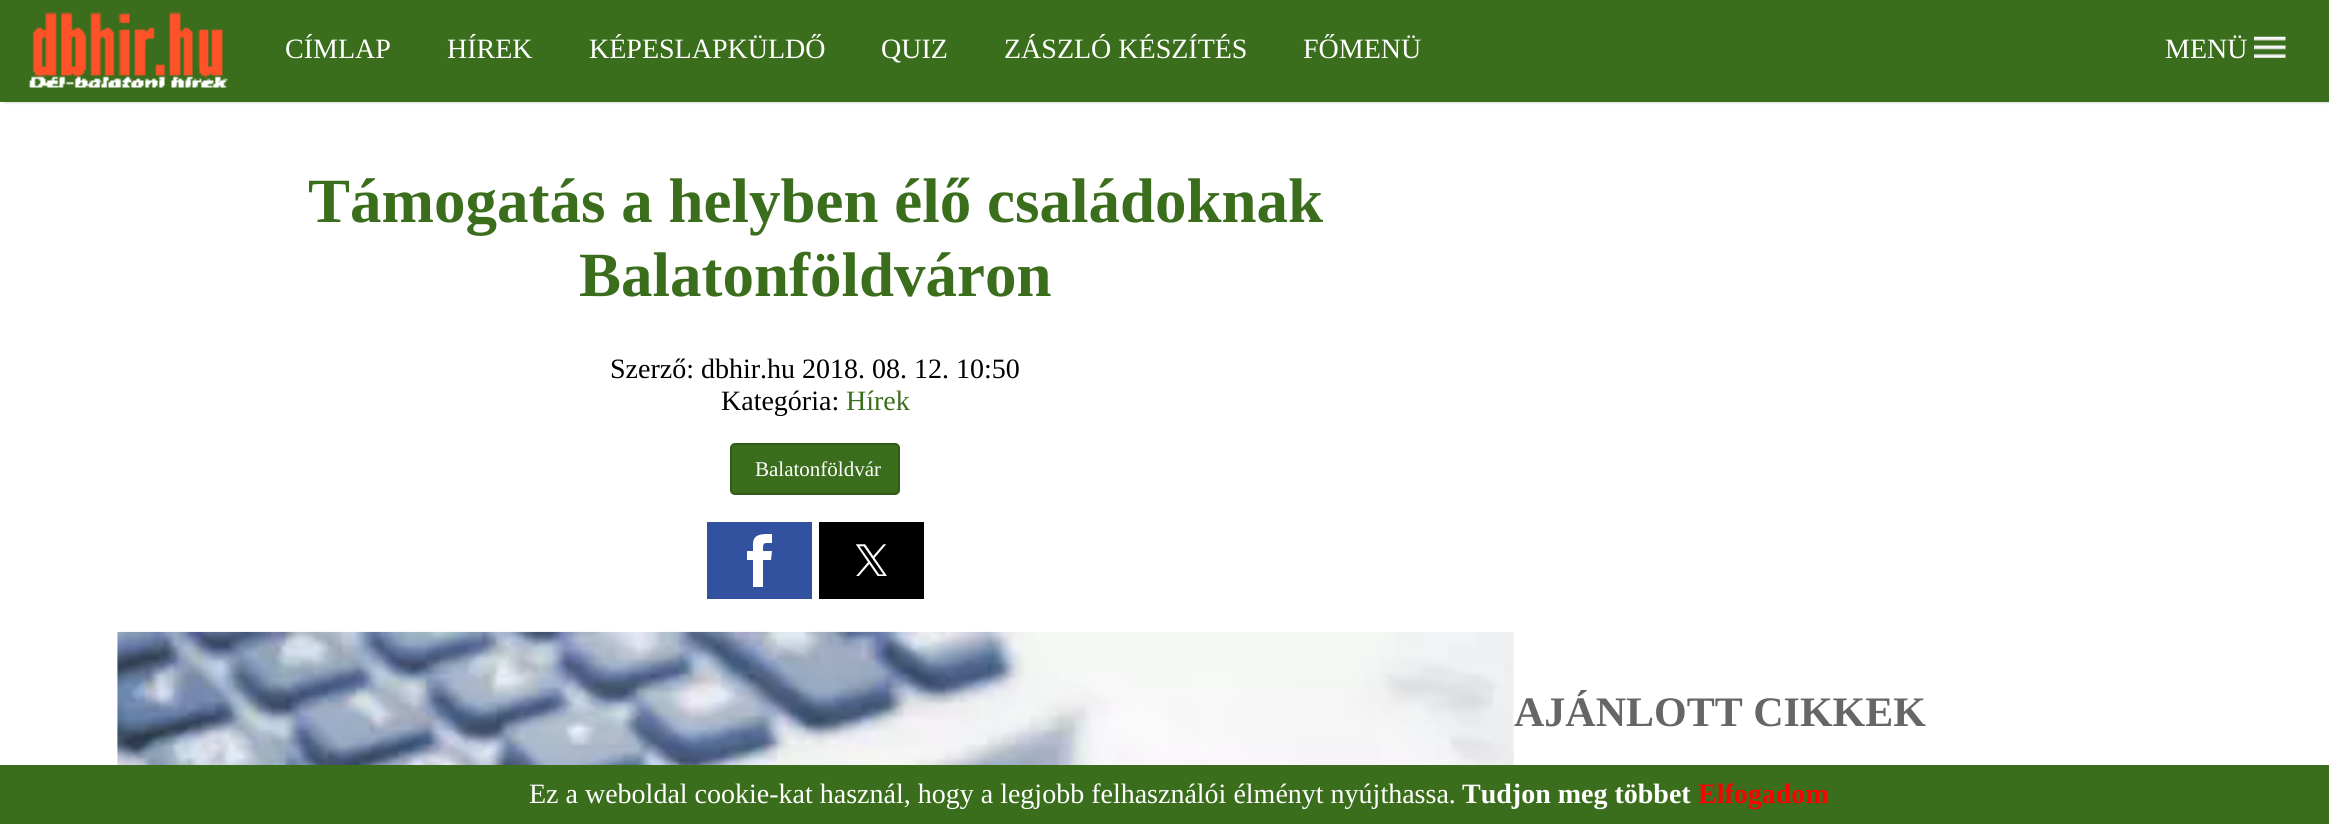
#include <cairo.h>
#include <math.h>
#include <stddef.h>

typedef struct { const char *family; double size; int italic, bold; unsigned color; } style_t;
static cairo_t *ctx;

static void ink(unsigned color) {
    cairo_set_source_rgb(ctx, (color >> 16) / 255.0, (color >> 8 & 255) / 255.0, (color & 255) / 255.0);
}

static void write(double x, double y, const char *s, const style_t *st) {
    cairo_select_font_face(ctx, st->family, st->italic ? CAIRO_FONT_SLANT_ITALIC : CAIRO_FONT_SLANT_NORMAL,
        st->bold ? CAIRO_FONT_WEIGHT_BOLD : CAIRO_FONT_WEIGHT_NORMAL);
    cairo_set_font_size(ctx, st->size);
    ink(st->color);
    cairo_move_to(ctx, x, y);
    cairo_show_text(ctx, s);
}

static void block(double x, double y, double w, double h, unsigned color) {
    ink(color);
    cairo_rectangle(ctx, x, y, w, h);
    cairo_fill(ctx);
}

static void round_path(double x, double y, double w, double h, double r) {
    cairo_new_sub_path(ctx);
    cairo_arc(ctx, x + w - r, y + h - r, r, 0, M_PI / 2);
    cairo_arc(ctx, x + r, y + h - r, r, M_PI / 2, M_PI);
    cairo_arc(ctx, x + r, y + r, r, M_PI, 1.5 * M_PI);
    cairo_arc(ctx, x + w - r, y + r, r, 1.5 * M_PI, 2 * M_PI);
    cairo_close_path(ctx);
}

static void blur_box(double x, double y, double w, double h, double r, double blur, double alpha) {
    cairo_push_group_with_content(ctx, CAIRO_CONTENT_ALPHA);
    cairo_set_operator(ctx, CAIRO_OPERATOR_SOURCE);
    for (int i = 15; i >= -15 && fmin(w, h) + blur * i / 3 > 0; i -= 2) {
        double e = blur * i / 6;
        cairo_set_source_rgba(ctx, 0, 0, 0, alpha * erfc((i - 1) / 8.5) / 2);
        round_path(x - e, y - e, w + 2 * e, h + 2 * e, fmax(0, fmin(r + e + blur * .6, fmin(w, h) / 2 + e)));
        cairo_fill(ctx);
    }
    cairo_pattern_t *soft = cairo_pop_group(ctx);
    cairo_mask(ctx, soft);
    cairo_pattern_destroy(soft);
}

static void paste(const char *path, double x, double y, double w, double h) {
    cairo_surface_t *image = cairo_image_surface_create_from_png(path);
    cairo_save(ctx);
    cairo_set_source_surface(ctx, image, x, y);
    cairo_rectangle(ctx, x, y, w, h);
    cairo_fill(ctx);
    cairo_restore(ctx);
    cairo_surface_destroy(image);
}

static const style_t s1 = {"Liberation Serif", 28, 0, 0, 0xffffff};
static const style_t s2 = {"Liberation Serif", 63, 0, 1, 0x3b6e1c};
static const style_t s3 = {"Liberation Serif", 28, 0, 0, 0x000000};
static const style_t s4 = {"Liberation Serif", 28, 0, 0, 0x3b6e1c};
static const style_t s5 = {"Liberation Serif", 21, 0, 0, 0xffffff};
static const style_t s6 = {"Liberation Serif", 42, 0, 1, 0x666666};
static const style_t s7 = {"Liberation Serif", 28, 0, 1, 0xffffff};
static const style_t s8 = {"Liberation Serif", 28, 0, 1, 0xff0000};

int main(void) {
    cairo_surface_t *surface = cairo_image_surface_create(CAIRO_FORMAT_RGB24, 2329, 824);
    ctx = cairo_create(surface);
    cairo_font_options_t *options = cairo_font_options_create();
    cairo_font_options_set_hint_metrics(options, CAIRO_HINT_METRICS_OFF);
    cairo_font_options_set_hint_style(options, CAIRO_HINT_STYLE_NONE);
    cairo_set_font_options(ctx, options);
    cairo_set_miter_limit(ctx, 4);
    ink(0xffffff);
    cairo_paint(ctx);
    ink(0x000000);
    blur_box(4, 2, 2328, 101, 0, 1, 0.15);
    block(0, 0, 2329, 102, 0x3b6e1c);
    paste("pic1.png", 29, 11, 199, 77);
    write(285, 58, "CÍMLAP", &s1);
    write(447, 58, "HÍREK", &s1);
    write(589, 58, "KÉPESLAPKÜLDŐ", &s1);
    write(881, 58, "QUIZ", &s1);
    write(1004, 58, "ZÁSZLÓ KÉSZÍTÉS", &s1);
    write(1303, 58, "FŐMENÜ", &s1);
    write(2165, 58, "MENÜ", &s1);
    paste("pic2.png", 2254, 36, 32, 22);
    write(308, 222, "Támogatás a helyben élő családoknak", &s2);
    write(579, 296, "Balatonföldváron", &s2);
    write(610, 378, "Szerző: dbhir.hu 2018. 08. 12. 10:50", &s3);
    write(721, 410, "Kategória:", &s3);
    write(846, 410, "Hírek", &s4);
    round_path(731, 444, 168, 50, 4);
    cairo_fill_preserve(ctx);
    ink(0x305a17);
    cairo_stroke(ctx);
    write(755, 476, "Balatonföldvár", &s5);
    block(707, 522, 105, 77, 0x32529f);
    ink(0xffffff);
    cairo_new_path(ctx);
    cairo_move_to(ctx, 753, 551);
    cairo_line_to(ctx, 747, 551);
    cairo_line_to(ctx, 747, 560);
    cairo_line_to(ctx, 753, 560);
    cairo_line_to(ctx, 753, 587);
    cairo_line_to(ctx, 763, 587);
    cairo_line_to(ctx, 763, 560);
    cairo_line_to(ctx, 771, 560);
    cairo_line_to(ctx, 772, 551);
    cairo_line_to(ctx, 763, 551);
    cairo_curve_to(ctx, 763, 542, 763, 543, 772, 543);
    cairo_line_to(ctx, 772, 534);
    cairo_curve_to(ctx, 764, 534, 753, 533, 753, 544);
    cairo_close_path(ctx);
    cairo_fill(ctx);
    block(819, 522, 105, 77, 0x000000);
    paste("pic3.png", 856, 544, 31, 32);
    paste("pic4.png", 117, 631, 1397, 134);
    write(1514, 726, "AJÁNLOTT CIKKEK", &s6);
    block(0, 765, 2329, 59, 0x3b6e1c);
    write(529, 803, "Ez a weboldal cookie-kat használ, hogy a legjobb felhasználói élményt nyújthassa.", &s1);
    write(1462, 803, "Tudjon meg többet", &s7);
    write(1698, 803, "Elfogadom", &s8);
    cairo_surface_write_to_png(surface, "screenshot.png");
    cairo_font_options_destroy(options);
    cairo_destroy(ctx);
    cairo_surface_destroy(surface);
    return 0;
}
